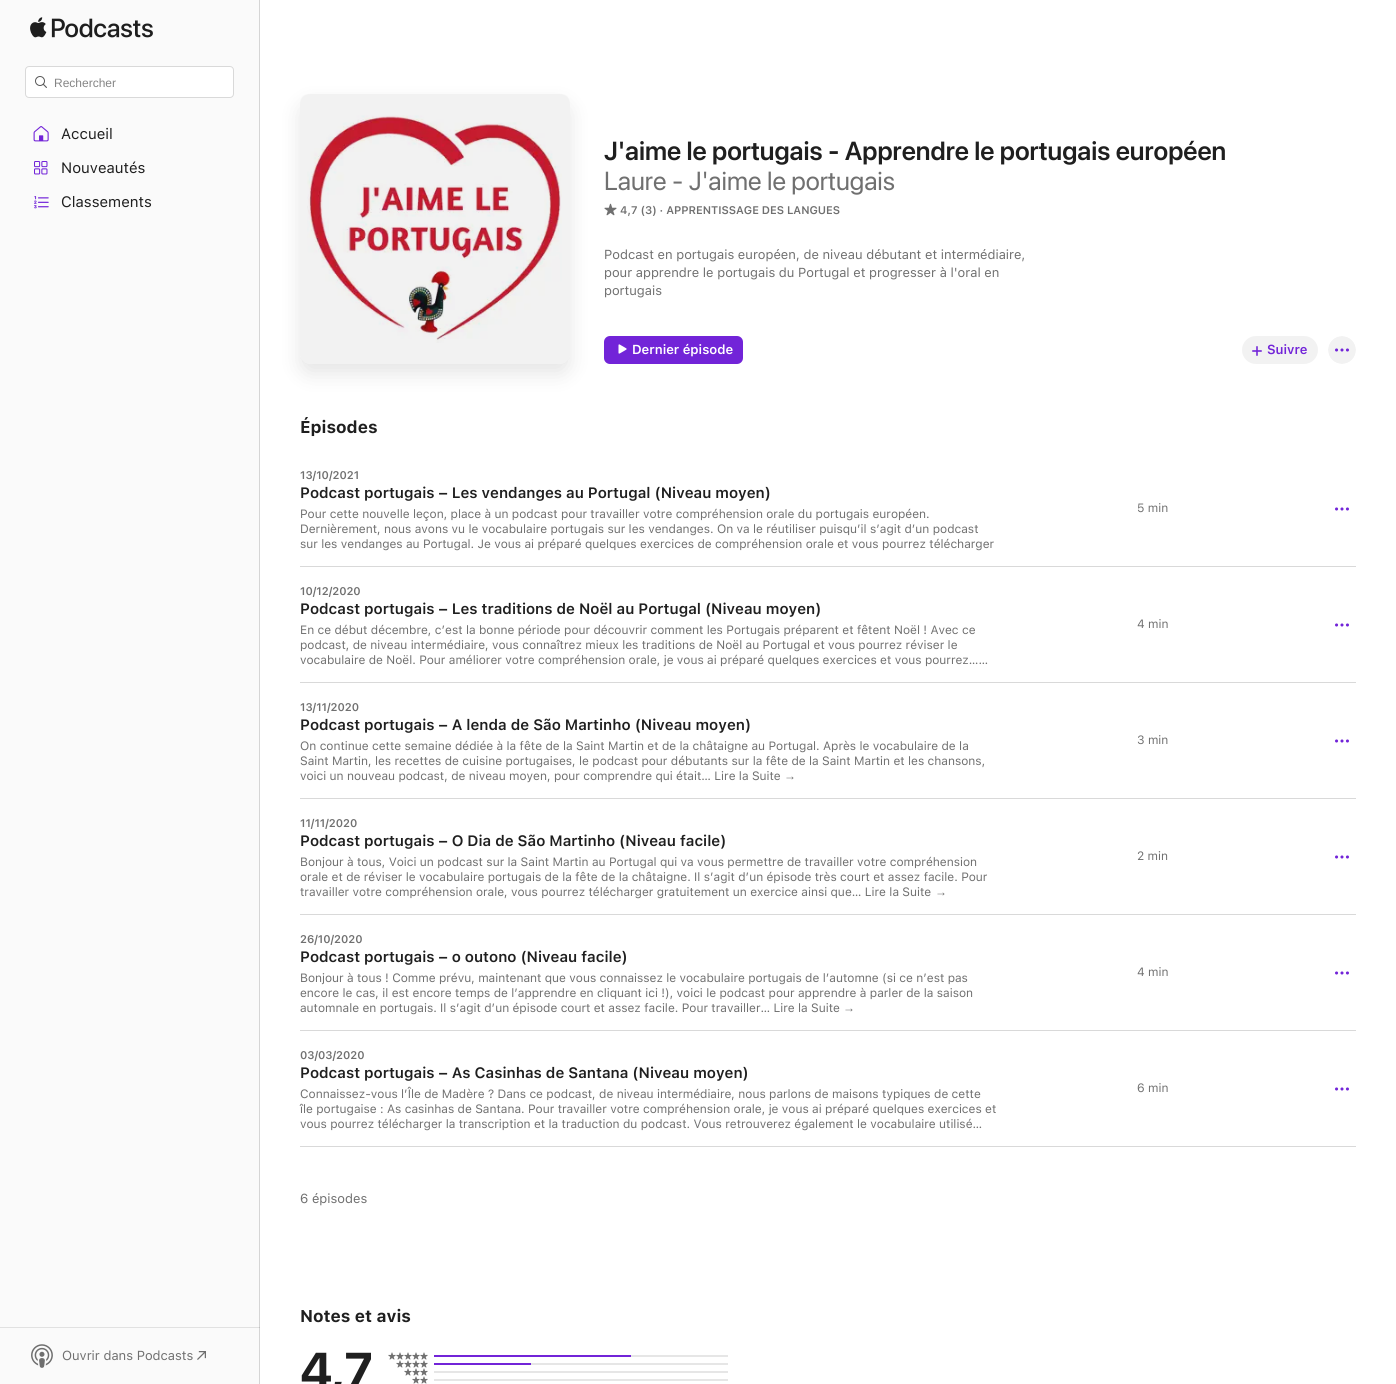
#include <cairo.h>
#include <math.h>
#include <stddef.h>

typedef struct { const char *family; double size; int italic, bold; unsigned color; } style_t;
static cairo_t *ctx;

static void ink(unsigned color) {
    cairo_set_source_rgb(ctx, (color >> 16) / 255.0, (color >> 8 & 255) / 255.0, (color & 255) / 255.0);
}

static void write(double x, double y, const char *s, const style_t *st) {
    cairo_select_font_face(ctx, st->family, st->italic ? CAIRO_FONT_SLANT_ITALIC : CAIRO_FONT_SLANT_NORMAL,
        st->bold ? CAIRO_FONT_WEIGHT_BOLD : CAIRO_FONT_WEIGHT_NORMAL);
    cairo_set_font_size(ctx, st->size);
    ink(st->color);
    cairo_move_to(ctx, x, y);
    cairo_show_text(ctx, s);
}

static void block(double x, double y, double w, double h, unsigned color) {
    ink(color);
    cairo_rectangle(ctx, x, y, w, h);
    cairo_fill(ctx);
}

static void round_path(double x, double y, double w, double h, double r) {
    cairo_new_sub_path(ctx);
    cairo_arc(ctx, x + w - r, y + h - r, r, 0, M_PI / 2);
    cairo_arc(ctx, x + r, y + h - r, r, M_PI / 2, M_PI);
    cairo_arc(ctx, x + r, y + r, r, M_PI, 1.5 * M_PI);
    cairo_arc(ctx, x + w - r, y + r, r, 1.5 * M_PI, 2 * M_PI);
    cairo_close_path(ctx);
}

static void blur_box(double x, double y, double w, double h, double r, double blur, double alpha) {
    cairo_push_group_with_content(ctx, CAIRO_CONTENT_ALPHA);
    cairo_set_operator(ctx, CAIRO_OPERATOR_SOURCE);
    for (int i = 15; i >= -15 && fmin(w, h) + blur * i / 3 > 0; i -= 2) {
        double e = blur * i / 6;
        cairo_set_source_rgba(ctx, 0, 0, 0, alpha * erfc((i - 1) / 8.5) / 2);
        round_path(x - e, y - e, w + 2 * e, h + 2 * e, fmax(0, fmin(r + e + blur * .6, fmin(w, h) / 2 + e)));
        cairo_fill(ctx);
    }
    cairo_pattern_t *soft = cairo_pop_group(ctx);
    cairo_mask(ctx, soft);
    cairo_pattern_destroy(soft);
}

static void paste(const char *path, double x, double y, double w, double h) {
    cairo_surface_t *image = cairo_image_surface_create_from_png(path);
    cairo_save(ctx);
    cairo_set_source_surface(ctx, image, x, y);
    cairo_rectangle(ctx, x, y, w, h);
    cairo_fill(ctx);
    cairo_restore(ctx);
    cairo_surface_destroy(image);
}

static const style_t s1 = {"Liberation Sans", 12, 0, 0, 0x858585};
static const style_t s2 = {"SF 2", 15, 0, 0, 0x1f1f1f};
static const style_t s3 = {"SF 2", 13, 0, 0, 0x707070};
static const style_t s4 = {"SF 2 SemiBold", 26, 0, 0, 0x1f1f1f};
static const style_t s5 = {"SF", 26, 0, 0, 0x707070};
static const style_t s6 = {"SF SemiBold", 11, 0, 0, 0x707070};
static const style_t s7 = {"SF SemiBold", 13, 0, 0, 0xffffff};
static const style_t s8 = {"SF SemiBold", 13, 0, 0, 0x7224d8};
static const style_t s9 = {"SF", 17, 0, 1, 0x1f1f1f};
static const style_t s10 = {"SF SemiBold", 15, 0, 0, 0x1f1f1f};
static const style_t s11 = {"SF 2", 12, 0, 0, 0x707070};
static const style_t s12 = {"Liberation Sans", 12, 0, 0, 0x707070};
static const style_t s13 = {"SF 2", 50, 0, 1, 0x1f1f1f};

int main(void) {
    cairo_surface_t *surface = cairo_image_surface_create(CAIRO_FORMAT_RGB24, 1396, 1384);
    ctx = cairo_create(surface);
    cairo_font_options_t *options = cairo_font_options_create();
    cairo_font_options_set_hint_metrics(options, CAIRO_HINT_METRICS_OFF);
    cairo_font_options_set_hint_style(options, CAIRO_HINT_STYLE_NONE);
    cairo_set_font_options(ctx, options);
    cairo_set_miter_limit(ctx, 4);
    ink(0xffffff);
    cairo_paint(ctx);
    block(0, 0, 259, 1384, 0xfafafa);
    block(0, 1327, 260, 1, 0xe1e1e1);
    block(259, 0, 1, 1384, 0xd5d5d5);
    block(259, 1327, 1, 1, 0xc0c0c0);
    paste("pic1.png", 30, 17, 123, 21);
    ink(0xffffff);
    round_path(25.5, 66.5, 208, 31, 3.5);
    cairo_fill_preserve(ctx);
    ink(0xd9d9d9);
    cairo_set_line_width(ctx, 1);
    cairo_stroke(ctx);
    paste("pic2.png", 35, 76, 12, 12);
    write(54, 87, "Rechercher", &s1);
    paste("pic3.png", 33, 126, 16, 16);
    write(61, 139, "Accueil", &s2);
    paste("pic4.png", 34, 161, 14, 14);
    write(61, 173, "Nouveautés", &s2);
    paste("pic5.png", 34, 196, 15, 13);
    write(61, 207, "Classements", &s2);
    paste("pic6.png", 31, 1344, 22, 24);
    write(62, 1360, "Ouvrir dans Podcasts", &s3);
    paste("pic7.png", 197, 1351, 9, 9);
    cairo_save(ctx);
    cairo_set_fill_rule(ctx, CAIRO_FILL_RULE_EVEN_ODD);
    cairo_new_path(ctx);
    cairo_move_to(ctx, 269, 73);
    cairo_line_to(ctx, 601, 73);
    cairo_line_to(ctx, 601, 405);
    cairo_line_to(ctx, 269, 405);
    cairo_close_path(ctx);
    cairo_move_to(ctx, 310, 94);
    cairo_line_to(ctx, 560, 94);
    cairo_curve_to(ctx, 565.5, 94, 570, 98.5, 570, 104);
    cairo_line_to(ctx, 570, 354);
    cairo_curve_to(ctx, 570, 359.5, 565.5, 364, 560, 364);
    cairo_line_to(ctx, 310, 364);
    cairo_curve_to(ctx, 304.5, 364, 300, 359.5, 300, 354);
    cairo_line_to(ctx, 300, 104);
    cairo_curve_to(ctx, 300, 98.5, 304.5, 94, 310, 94);
    cairo_close_path(ctx);
    cairo_clip(ctx);
    ink(0x000000);
    blur_box(300, 104, 270, 270, 10, 10, 0.1);
    cairo_restore(ctx);
    paste("pic8.png", 307, 115, 255, 228);
    cairo_set_source_rgba(ctx, 0.502, 0.502, 0.502, 0.1);
    cairo_new_path(ctx);
    cairo_move_to(ctx, 310, 94);
    cairo_line_to(ctx, 560, 94);
    cairo_curve_to(ctx, 566, 94, 570, 98, 570, 104);
    cairo_line_to(ctx, 570, 354);
    cairo_curve_to(ctx, 570, 360, 566, 364, 560, 364);
    cairo_line_to(ctx, 310, 364);
    cairo_curve_to(ctx, 304, 364, 300, 360, 300, 354);
    cairo_line_to(ctx, 300, 104);
    cairo_curve_to(ctx, 300, 98, 304, 94, 310, 94);
    cairo_close_path(ctx);
    cairo_fill(ctx);
    write(604, 160, "J'aime le portugais - Apprendre le portugais européen", &s4);
    write(604, 190, "Laure - J'aime le portugais", &s5);
    paste("pic9.png", 604, 203, 13, 13);
    write(620, 214, "4,7 (3) · APPRENTISSAGE DES LANGUES", &s6);
    write(604, 259, "Podcast en portugais européen, de niveau débutant et intermédiaire,", &s3);
    write(604, 277, "pour apprendre le portugais du Portugal et progresser à l'oral en", &s3);
    write(604, 295, "portugais", &s3);
    ink(0x7224d8);
    round_path(604, 336, 139, 28, 6);
    cairo_fill(ctx);
    paste("pic10.png", 618, 344, 9, 10);
    write(632, 354, "Dernier épisode", &s7);
    ink(0xf2f2f2);
    round_path(1242, 336, 76, 28, 14);
    cairo_fill(ctx);
    paste("pic11.png", 1252, 346, 10, 10);
    write(1267, 354, "Suivre", &s8);
    paste("pic12.png", 1328, 336, 28, 28);
    write(300, 433, "Épisodes", &s9);
    block(300, 566, 1056, 1, 0xd9d9d9);
    write(300, 479, "13/10/2021", &s6);
    write(300, 498, "Podcast portugais – Les vendanges au Portugal (Niveau moyen)", &s10);
    write(300, 518, "Pour cette nouvelle leçon, place à un podcast pour travailler votre compréhension orale du portugais européen.", &s11);
    write(300, 533, "Dernièrement, nous avons vu le vocabulaire portugais sur les vendanges. On va le réutiliser puisqu’il s’agit d’un podcast", &s11);
    write(300, 548, "sur les vendanges au Portugal. Je vous ai préparé quelques exercices de compréhension orale et vous pourrez télécharger", &s11);
    write(1137, 512, "5 min", &s11);
    paste("pic13.png", 1335, 507, 14, 4);
    block(300, 682, 1056, 1, 0xd9d9d9);
    write(300, 595, "10/12/2020", &s6);
    write(300, 614, "Podcast portugais – Les traditions de Noël au Portugal (Niveau moyen)", &s10);
    write(300, 634, "En ce début décembre, c’est la bonne période pour découvrir comment les Portugais préparent et fêtent Noël ! Avec ce", &s11);
    write(300, 649, "podcast, de niveau intermédiaire, vous connaîtrez mieux les traditions de Noël au Portugal et vous pourrez réviser le", &s11);
    write(300, 664, "vocabulaire de Noël. Pour améliorer votre compréhension orale, je vous ai préparé quelques exercices et vous pourrez……", &s11);
    write(1137, 628, "4 min", &s11);
    paste("pic13.png", 1335, 623, 14, 4);
    block(300, 798, 1056, 1, 0xd9d9d9);
    write(300, 711, "13/11/2020", &s6);
    write(300, 730, "Podcast portugais – A lenda de São Martinho (Niveau moyen)", &s10);
    write(300, 750, "On continue cette semaine dédiée à la fête de la Saint Martin et de la châtaigne au Portugal. Après le vocabulaire de la", &s11);
    write(300, 765, "Saint Martin, les recettes de cuisine portugaises, le podcast pour débutants sur la fête de la Saint Martin et les chansons,", &s11);
    write(300, 780, "voici un nouveau podcast, de niveau moyen, pour comprendre qui était… Lire la Suite", &s11);
    write(784, 780, "→", &s12);
    write(1137, 744, "3 min", &s11);
    paste("pic13.png", 1335, 739, 14, 4);
    block(300, 914, 1056, 1, 0xd9d9d9);
    write(300, 827, "11/11/2020", &s6);
    write(300, 846, "Podcast portugais – O Dia de São Martinho (Niveau facile)", &s10);
    write(300, 866, "Bonjour à tous, Voici un podcast sur la Saint Martin au Portugal qui va vous permettre de travailler votre compréhension", &s11);
    write(300, 881, "orale et de réviser le vocabulaire portugais de la fête de la châtaigne. Il s’agit d’un épisode très court et assez facile. Pour", &s11);
    write(300, 896, "travailler votre compréhension orale, vous pourrez télécharger gratuitement un exercice ainsi que… Lire la Suite", &s11);
    write(935, 896, "→", &s12);
    write(1137, 860, "2 min", &s11);
    paste("pic13.png", 1335, 855, 14, 4);
    block(300, 1030, 1056, 1, 0xd9d9d9);
    write(300, 943, "26/10/2020", &s6);
    write(300, 962, "Podcast portugais – o outono (Niveau facile)", &s10);
    write(300, 982, "Bonjour à tous ! Comme prévu, maintenant que vous connaissez le vocabulaire portugais de l’automne (si ce n’est pas", &s11);
    write(300, 997, "encore le cas, il est encore temps de l’apprendre en cliquant ici !), voici le podcast pour apprendre à parler de la saison", &s11);
    write(300, 1012, "automnale en portugais. Il s’agit d’un épisode court et assez facile. Pour travailler… Lire la Suite", &s11);
    write(843, 1012, "→", &s12);
    write(1137, 976, "4 min", &s11);
    paste("pic13.png", 1335, 971, 14, 4);
    block(300, 1146, 1056, 1, 0xd9d9d9);
    write(300, 1059, "03/03/2020", &s6);
    write(300, 1078, "Podcast portugais – As Casinhas de Santana (Niveau moyen)", &s10);
    write(300, 1098, "Connaissez-vous l’Île de Madère ? Dans ce podcast, de niveau intermédiaire, nous parlons de maisons typiques de cette", &s11);
    write(300, 1113, "île portugaise : As casinhas de Santana. Pour travailler votre compréhension orale, je vous ai préparé quelques exercices et", &s11);
    write(300, 1128, "vous pourrez télécharger la transcription et la traduction du podcast. Vous retrouverez également le vocabulaire utilisé…", &s11);
    write(1137, 1092, "6 min", &s11);
    paste("pic13.png", 1335, 1087, 14, 4);
    write(300, 1203, "6 épisodes", &s3);
    write(300, 1322, "Notes et avis", &s9);
    write(300, 1388, "4,7", &s13);
    paste("pic14.png", 388, 1352, 8, 8);
    paste("pic14.png", 396, 1352, 8, 8);
    paste("pic14.png", 404, 1352, 8, 8);
    paste("pic14.png", 412, 1352, 8, 8);
    paste("pic14.png", 420, 1352, 8, 8);
    block(631, 1355, 97, 2, 0xe6e6e6);
    block(434, 1355, 197, 2, 0x7224d8);
    paste("pic14.png", 396, 1360, 8, 8);
    paste("pic14.png", 404, 1360, 8, 8);
    paste("pic14.png", 412, 1360, 8, 8);
    paste("pic14.png", 420, 1360, 8, 8);
    block(531, 1363, 197, 2, 0xe6e6e6);
    block(434, 1363, 97, 2, 0x7224d8);
    paste("pic14.png", 404, 1368, 8, 8);
    paste("pic14.png", 412, 1368, 8, 8);
    paste("pic14.png", 420, 1368, 8, 8);
    block(434, 1371, 294, 2, 0xe6e6e6);
    paste("pic14.png", 412, 1376, 8, 8);
    paste("pic14.png", 420, 1376, 8, 8);
    block(434, 1379, 294, 2, 0xe6e6e6);
    cairo_surface_write_to_png(surface, "screenshot.png");
    cairo_font_options_destroy(options);
    cairo_destroy(ctx);
    cairo_surface_destroy(surface);
    return 0;
}
